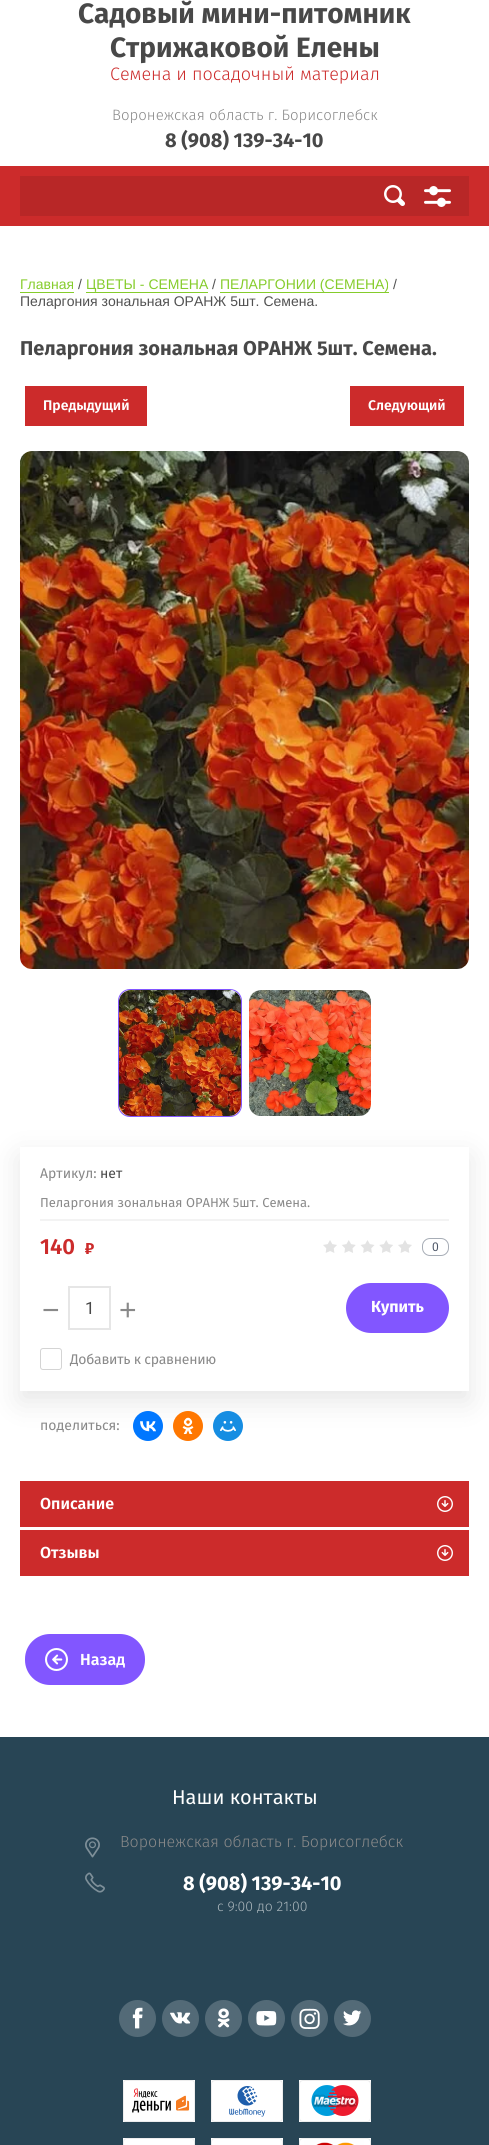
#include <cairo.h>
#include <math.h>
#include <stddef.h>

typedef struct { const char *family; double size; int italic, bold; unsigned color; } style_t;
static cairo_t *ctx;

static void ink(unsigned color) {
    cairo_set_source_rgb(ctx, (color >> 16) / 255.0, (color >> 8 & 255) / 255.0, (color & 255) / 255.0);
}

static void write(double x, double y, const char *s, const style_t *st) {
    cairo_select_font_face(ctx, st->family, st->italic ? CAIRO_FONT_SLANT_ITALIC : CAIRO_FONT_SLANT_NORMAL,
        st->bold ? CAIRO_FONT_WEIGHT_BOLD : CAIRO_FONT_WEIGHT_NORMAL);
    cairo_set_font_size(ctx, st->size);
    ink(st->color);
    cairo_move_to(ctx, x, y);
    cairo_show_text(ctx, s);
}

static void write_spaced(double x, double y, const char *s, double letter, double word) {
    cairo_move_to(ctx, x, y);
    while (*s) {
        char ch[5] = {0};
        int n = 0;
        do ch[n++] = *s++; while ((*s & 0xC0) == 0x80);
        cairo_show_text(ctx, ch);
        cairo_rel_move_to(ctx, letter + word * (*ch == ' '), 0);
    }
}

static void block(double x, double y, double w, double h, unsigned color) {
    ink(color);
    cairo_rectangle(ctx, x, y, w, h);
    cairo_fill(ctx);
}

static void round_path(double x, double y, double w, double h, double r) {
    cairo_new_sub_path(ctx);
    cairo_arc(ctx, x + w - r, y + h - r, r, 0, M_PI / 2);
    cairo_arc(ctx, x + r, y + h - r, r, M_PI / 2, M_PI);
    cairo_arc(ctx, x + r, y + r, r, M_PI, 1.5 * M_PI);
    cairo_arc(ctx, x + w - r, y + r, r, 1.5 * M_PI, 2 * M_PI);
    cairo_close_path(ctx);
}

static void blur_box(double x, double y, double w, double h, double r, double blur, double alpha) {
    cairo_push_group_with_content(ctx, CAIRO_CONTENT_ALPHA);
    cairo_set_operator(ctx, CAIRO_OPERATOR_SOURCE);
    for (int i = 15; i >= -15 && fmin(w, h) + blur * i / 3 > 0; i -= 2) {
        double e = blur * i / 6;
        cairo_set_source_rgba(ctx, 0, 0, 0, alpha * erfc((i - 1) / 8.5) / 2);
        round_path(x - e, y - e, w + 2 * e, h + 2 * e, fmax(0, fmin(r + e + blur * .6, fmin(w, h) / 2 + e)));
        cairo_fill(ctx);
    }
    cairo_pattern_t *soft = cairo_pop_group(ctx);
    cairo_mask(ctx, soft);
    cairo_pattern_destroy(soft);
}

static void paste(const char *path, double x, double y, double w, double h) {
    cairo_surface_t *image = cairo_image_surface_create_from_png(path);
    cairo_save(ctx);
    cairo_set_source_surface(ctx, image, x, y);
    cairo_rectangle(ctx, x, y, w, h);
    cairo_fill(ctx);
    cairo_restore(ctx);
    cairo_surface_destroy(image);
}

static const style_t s1 = {"Fira Sans", 28, 0, 1, 0x484848};
static const style_t s2 = {"Fira Sans Light", 18, 0, 0, 0xcc2b2b};
static const style_t s3 = {"Fira Sans Light", 15, 0, 0, 0x898989};
static const style_t s4 = {"Fira Sans", 20, 0, 1, 0x484848};
static const style_t s5 = {"Liberation Sans", 14, 0, 0, 0x85cc2b};
static const style_t s6 = {"Liberation Sans", 14, 0, 0, 0x515151};
static const style_t s7 = {"Fira Sans SemiBold", 14, 0, 0, 0xffffff};
static const style_t s8 = {"Fira Sans", 14, 0, 0, 0x898989};
static const style_t s9 = {"Fira Sans", 14, 0, 0, 0x484848};
static const style_t s10 = {"Fira Sans", 13, 0, 0, 0x898989};
static const style_t s11 = {"Fira Sans SemiBold", 22, 0, 0, 0xcc2b2b};
static const style_t s12 = {"Roboto", 12, 0, 0, 0x4c5667};
static const style_t s13 = {"Liberation Sans", 30, 0, 0, 0x898989};
static const style_t s14 = {"Roboto", 17, 0, 0, 0x484848};
static const style_t s15 = {"Fira Sans", 16, 0, 1, 0xffffff};
static const style_t s16 = {"Fira Sans SemiBold", 16, 0, 0, 0xffffff};
static const style_t s17 = {"Fira Sans", 20, 0, 0, 0xffffff};
static const style_t s18 = {"Fira Sans Light", 16, 0, 0, 0x898989};
static const style_t s19 = {"Fira Sans", 20, 0, 1, 0xffffff};
static const style_t s20 = {"Fira Sans Light", 14, 0, 0, 0xa9b5bb};

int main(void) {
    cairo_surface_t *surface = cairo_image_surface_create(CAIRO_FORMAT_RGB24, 489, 2145);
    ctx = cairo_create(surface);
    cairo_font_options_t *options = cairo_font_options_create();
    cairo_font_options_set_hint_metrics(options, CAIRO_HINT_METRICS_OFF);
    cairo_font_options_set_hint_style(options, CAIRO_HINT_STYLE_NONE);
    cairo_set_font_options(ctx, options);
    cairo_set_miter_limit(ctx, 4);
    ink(0xffffff);
    cairo_paint(ctx);
    write(78, 23, "Садовый мини-питомник", &s1);
    write(110, 57, "Стрижаковой Елены", &s1);
    write(110, 80, "Cемена и посадочный материал", &s2);
    write(112, 120, "Воронежская область г. Борисоглебск", &s3);
    write(165, 147, "8 (908) 139-34-10", &s4);
    block(0, 166, 489, 60, 0xcc2b2b);
    block(20, 176, 449, 40, 0xb82727);
    paste("pic1.png", 384, 185, 21, 21);
    paste("pic2.png", 424, 186, 27, 21);
    write(20, 289, "Главная", &s5);
    block(20, 292, 54, 1, 0x85cc2b);
    write(78, 289, "/", &s6);
    write(86, 289, "ЦВЕТЫ - СЕМЕНА", &s5);
    block(86, 292, 122, 1, 0x85cc2b);
    write(212, 289, "/", &s6);
    write(220, 289, "ПЕЛАРГОНИИ (СЕМЕНА)", &s5);
    block(220, 292, 169, 1, 0x85cc2b);
    write(393, 289, "/", &s6);
    write(20, 306, "Пеларгония зональная ОРАНЖ 5шт. Семена.", &s6);
    write(20, 355, "Пеларгония зональная ОРАНЖ 5шт. Семена.", &s4);
    block(25, 386, 122, 40, 0xcc2b2b);
    write(43, 410, "Предыдущий", &s7);
    block(350, 386, 114, 40, 0xcc2b2b);
    write(368, 410, "Следующий", &s7);
    paste("pic3.png", 20, 451, 449, 518);
    cairo_save(ctx);
    cairo_set_fill_rule(ctx, CAIRO_FILL_RULE_EVEN_ODD);
    cairo_new_path(ctx);
    cairo_move_to(ctx, 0, 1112);
    cairo_line_to(ctx, 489, 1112);
    cairo_line_to(ctx, 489, 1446);
    cairo_line_to(ctx, 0, 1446);
    cairo_close_path(ctx);
    cairo_move_to(ctx, 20, 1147);
    cairo_line_to(ctx, 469, 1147);
    cairo_line_to(ctx, 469, 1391);
    cairo_line_to(ctx, 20, 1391);
    cairo_close_path(ctx);
    cairo_clip(ctx);
    ink(0x000000);
    blur_box(20, 1157, 449, 244, 0, 14.5, 0.1);
    cairo_restore(ctx);
    round_path(118.5, 989.5, 123, 127, 11.5);
    ink(0x8256ff);
    cairo_set_line_width(ctx, 1);
    cairo_stroke(ctx);
    paste("pic4.png", 119, 990, 122, 126);
    paste("pic5.png", 249, 990, 122, 126);
    write(40, 1178, "Артикул:", &s8);
    write(100, 1178, "нет", &s9);
    write(40, 1207, "Пеларгония зональная ОРАНЖ 5шт. Семена.", &s10);
    block(40, 1219, 409, 2, 0xf3f3f3);
    write(40, 1254, "140", &s11);
    paste("pic6.png", 85, 1243, 9, 11);
    paste("pic7.png", 323, 1240, 89, 13);
    round_path(422.5, 1238.5, 26, 17, 7.5);
    ink(0xa7adb6);
    cairo_stroke(ctx);
    write(432, 1251, "0", &s12);
    write(42, 1320, "−", &s13);
    cairo_rectangle(ctx, 69, 1287, 41, 42);
    ink(0xe6e6e6);
    cairo_set_line_width(ctx, 2);
    cairo_stroke(ctx);
    write(85, 1314, "1", &s14);
    write(119, 1320, "+", &s13);
    ink(0x8256ff);
    round_path(346, 1283, 103, 50, 25);
    cairo_fill(ctx);
    write(371, 1312, "Купить", &s15);
    round_path(40.5, 1348.5, 21, 21, 2.5);
    ink(0xd4d4d4);
    cairo_set_line_width(ctx, 1);
    cairo_stroke(ctx);
    cairo_select_font_face(ctx, "Fira Sans", CAIRO_FONT_SLANT_NORMAL, CAIRO_FONT_WEIGHT_NORMAL);
    cairo_set_font_size(ctx, 14);
    ink(0x898989);
    write_spaced(70, 1364, "Добавить к сравнению", -0.25, 0);
    write(40, 1430, "поделиться:", &s8);
    ink(0x0077ff);
    cairo_new_path(ctx);
    cairo_arc(ctx, 148, 1426, 15, 0, 2 * M_PI);
    cairo_fill(ctx);
    paste("pic8.png", 140, 1421, 16, 11);
    ink(0xff7700);
    cairo_arc(ctx, 188, 1426, 15, 0, 2 * M_PI);
    cairo_fill(ctx);
    paste("pic9.png", 182, 1417, 12, 17);
    ink(0x168de2);
    cairo_arc(ctx, 228, 1426, 15, 0, 2 * M_PI);
    cairo_fill(ctx);
    paste("pic10.png", 220, 1421, 16, 11);
    block(20, 1481, 449, 46, 0xcc2b2b);
    write(40, 1509, "Описание", &s16);
    paste("pic11.png", 437, 1496, 16, 16);
    block(20, 1530, 449, 46, 0xcc2b2b);
    write(40, 1558, "Отзывы", &s16);
    paste("pic11.png", 437, 1545, 16, 16);
    ink(0x8256ff);
    round_path(25, 1634, 120, 51, 25);
    cairo_fill(ctx);
    paste("pic12.png", 45, 1648, 23, 23);
    write(80, 1665, "Назад", &s16);
    block(0, 1737, 489, 408, 0x284555);
    write(172, 1804, "Наши контакты", &s17);
    paste("pic13.png", 85, 1837, 15, 21);
    write(120, 1847, "Воронежская область г. Борисоглебск", &s18);
    paste("pic14.png", 85, 1872, 20, 21);
    write(183, 1890, "8 (908) 139-34-10", &s19);
    write(217, 1911, "c 9:00 до 21:00", &s20);
    ink(0x536a77);
    cairo_new_path(ctx);
    cairo_arc(ctx, 137.5, 2018.5, 18.5, 0, 2 * M_PI);
    cairo_fill(ctx);
    paste("pic15.png", 132, 2007, 11, 22);
    cairo_arc(ctx, 180.5, 2018.5, 18.5, 0, 2 * M_PI);
    cairo_fill(ctx);
    paste("pic16.png", 170, 2012, 21, 12);
    cairo_arc(ctx, 223.5, 2018.5, 18.5, 0, 2 * M_PI);
    cairo_fill(ctx);
    paste("pic17.png", 217, 2008, 13, 20);
    cairo_arc(ctx, 266.5, 2018.5, 18.5, 0, 2 * M_PI);
    cairo_fill(ctx);
    paste("pic18.png", 256, 2011, 21, 15);
    cairo_arc(ctx, 309.5, 2018.5, 18.5, 0, 2 * M_PI);
    cairo_fill(ctx);
    paste("pic19.png", 299, 2008, 21, 21);
    cairo_arc(ctx, 352.5, 2018.5, 18.5, 0, 2 * M_PI);
    cairo_fill(ctx);
    paste("pic20.png", 343, 2010, 19, 16);
    paste("pic21.png", 123, 2080, 72, 42);
    paste("pic22.png", 211, 2080, 72, 42);
    paste("pic23.png", 299, 2080, 72, 42);
    paste("pic24.png", 123, 2138, 72, 7);
    paste("pic24.png", 211, 2138, 72, 7);
    paste("pic25.png", 299, 2138, 72, 7);
    cairo_surface_write_to_png(surface, "screenshot.png");
    cairo_font_options_destroy(options);
    cairo_destroy(ctx);
    cairo_surface_destroy(surface);
    return 0;
}
